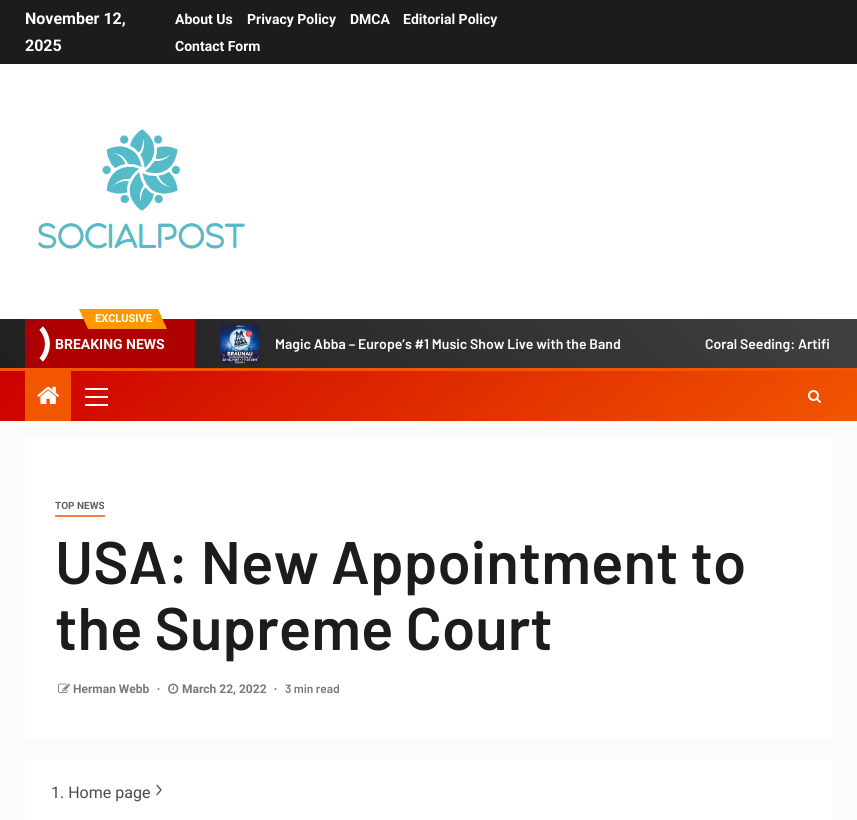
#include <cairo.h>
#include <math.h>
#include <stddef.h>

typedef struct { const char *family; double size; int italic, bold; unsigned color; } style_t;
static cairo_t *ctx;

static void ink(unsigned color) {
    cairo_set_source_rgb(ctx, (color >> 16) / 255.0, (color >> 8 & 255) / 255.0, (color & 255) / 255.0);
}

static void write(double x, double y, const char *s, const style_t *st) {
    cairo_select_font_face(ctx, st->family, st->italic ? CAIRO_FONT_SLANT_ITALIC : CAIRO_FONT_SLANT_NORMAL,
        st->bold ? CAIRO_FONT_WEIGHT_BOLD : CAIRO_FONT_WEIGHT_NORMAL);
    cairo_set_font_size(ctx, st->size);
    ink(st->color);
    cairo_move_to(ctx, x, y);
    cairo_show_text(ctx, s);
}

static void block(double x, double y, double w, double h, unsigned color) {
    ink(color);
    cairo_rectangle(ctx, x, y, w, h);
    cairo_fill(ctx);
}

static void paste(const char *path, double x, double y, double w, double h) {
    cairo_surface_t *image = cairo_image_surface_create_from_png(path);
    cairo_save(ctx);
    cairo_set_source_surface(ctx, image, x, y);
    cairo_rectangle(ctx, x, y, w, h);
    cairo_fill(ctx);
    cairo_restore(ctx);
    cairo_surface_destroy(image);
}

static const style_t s1 = {"Roboto", 16, 0, 1, 0xffffff};
static const style_t s2 = {"Roboto", 14, 0, 1, 0xffffff};
static const style_t s3 = {"Roboto", 11, 0, 1, 0xffffff};
static const style_t s4 = {"Barlow SemiBold", 14, 0, 0, 0xffffff};
static const style_t s5 = {"Roboto", 10, 0, 1, 0x606060};
static const style_t s6 = {"Barlow SemiBold", 60, 0, 0, 0x1c1c1c};
static const style_t s7 = {"Roboto", 12, 0, 1, 0x777777};
static const style_t s8 = {"Liberation Serif", 12, 0, 1, 0x777777};
static const style_t s9 = {"Barlow SemiBold", 12, 0, 0, 0x777777};
static const style_t s10 = {"Roboto", 16, 0, 0, 0x4a4a4a};

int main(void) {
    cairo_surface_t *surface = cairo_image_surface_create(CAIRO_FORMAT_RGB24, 857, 820);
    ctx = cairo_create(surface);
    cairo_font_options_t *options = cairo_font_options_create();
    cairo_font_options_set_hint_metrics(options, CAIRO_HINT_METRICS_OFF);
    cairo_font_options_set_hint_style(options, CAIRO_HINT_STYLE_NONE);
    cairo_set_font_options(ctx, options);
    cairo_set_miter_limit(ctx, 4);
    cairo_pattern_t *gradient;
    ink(0xfbfbfb);
    cairo_paint(ctx);
    block(0, 64, 857, 255, 0xffffff);
    block(0, 0, 857, 64, 0x1c1c1c);
    write(25, 24, "November 12,", &s1);
    write(25, 51, "2025", &s1);
    write(175, 24, "About Us", &s2);
    write(247, 24, "Privacy Policy", &s2);
    write(350, 24, "DMCA", &s2);
    write(403, 24, "Editorial Policy", &s2);
    write(175, 51, "Contact Form", &s2);
    paste("pic1.png", 37, 129, 208, 120);
    gradient = cairo_pattern_create_linear(202, 570, 655, 117);
    cairo_pattern_add_color_stop_rgba(gradient, 0, 0.125, 0.125, 0.125, 1);
    cairo_pattern_add_color_stop_rgba(gradient, 1, 0.251, 0.251, 0.251, 1);
    cairo_set_source(ctx, gradient);
    cairo_pattern_destroy(gradient);
    cairo_rectangle(ctx, 0, 319, 857, 49);
    cairo_fill(ctx);
    block(25, 319, 170, 49, 0xaf0000);
    block(88, 309, 70, 20, 0xff9800);
    cairo_new_path(ctx);
    cairo_move_to(ctx, 79, 309);
    cairo_line_to(ctx, 88, 309);
    cairo_line_to(ctx, 88, 329);
    cairo_close_path(ctx);
    cairo_fill(ctx);
    write(95, 322, "EXCLUSIVE", &s3);
    ink(0xff9800);
    cairo_new_path(ctx);
    cairo_move_to(ctx, 167, 329);
    cairo_line_to(ctx, 158, 329);
    cairo_line_to(ctx, 158, 309);
    cairo_close_path(ctx);
    cairo_fill(ctx);
    cairo_new_path(ctx);
    cairo_move_to(ctx, 41, 328);
    cairo_curve_to(ctx, 49.5, 337, 49.5, 351, 41, 360);
    ink(0xffffff);
    cairo_set_line_width(ctx, 5);
    cairo_stroke(ctx);
    cairo_save(ctx);
    cairo_rectangle(ctx, 25, 319, 170, 49);
    cairo_clip(ctx);
    cairo_new_path(ctx);
    cairo_move_to(ctx, 9, 328);
    cairo_curve_to(ctx, 18, 319.5, 32, 319.5, 41, 328);
    cairo_move_to(ctx, 41, 360);
    cairo_curve_to(ctx, 32, 368.5, 18, 368.5, 9, 360);
    ink(0xa2020f);
    cairo_stroke(ctx);
    cairo_restore(ctx);
    ink(0xa2020f);
    cairo_new_path(ctx);
    cairo_move_to(ctx, 25, 336);
    cairo_curve_to(ctx, 29.5, 336, 33, 339.5, 33, 344);
    cairo_curve_to(ctx, 33, 348.5, 29.5, 352, 25, 352);
    cairo_close_path(ctx);
    cairo_fill(ctx);
    write(55, 349, "BREAKING NEWS", &s2);
    paste("pic2.png", 220, 324, 40, 40);
    write(275, 349, "Magic Abba – Europe’s #1 Music Show Live with the Band", &s4);
    write(705, 349, "Coral Seeding: Artifi", &s4);
    gradient = cairo_pattern_create_linear(239, 170, 618, 622);
    cairo_pattern_add_color_stop_rgba(gradient, 0, 0.8, 0, 0, 1);
    cairo_pattern_add_color_stop_rgba(gradient, 1, 0.949, 0.337, 0, 1);
    cairo_set_source(ctx, gradient);
    cairo_pattern_destroy(gradient);
    cairo_rectangle(ctx, 0, 371, 857, 50);
    cairo_fill(ctx);
    block(0, 368, 857, 3, 0xf25600);
    block(25, 371, 46, 50, 0xf25600);
    paste("pic3.png", 37, 386, 22, 18);
    block(85, 396, 23, 2, 0xffffff);
    block(85, 388, 23, 2, 0xffffff);
    block(85, 404, 23, 2, 0xffffff);
    paste("pic4.png", 808, 390, 13, 13);
    block(25, 438, 807, 301, 0xffffff);
    block(55, 515, 50, 2, 0xf58040);
    write(55, 509, "TOP NEWS", &s5);
    write(55, 584, "USA: New Appointment to", &s6);
    write(55, 650, "the Supreme Court", &s6);
    paste("pic5.png", 58, 683, 12, 10);
    write(73, 693, "Herman Webb", &s7);
    write(157, 693, "∙", &s8);
    paste("pic6.png", 168, 683, 11, 11);
    write(182, 693, "March 22, 2022", &s7);
    write(274, 693, "∙", &s8);
    write(285, 693, "3 min read", &s9);
    block(25, 759, 807, 61, 0xffffff);
    write(51, 798, "1. Home page", &s10);
    paste("pic7.png", 156, 784, 6, 12);
    cairo_surface_write_to_png(surface, "screenshot.png");
    cairo_font_options_destroy(options);
    cairo_destroy(ctx);
    cairo_surface_destroy(surface);
    return 0;
}
